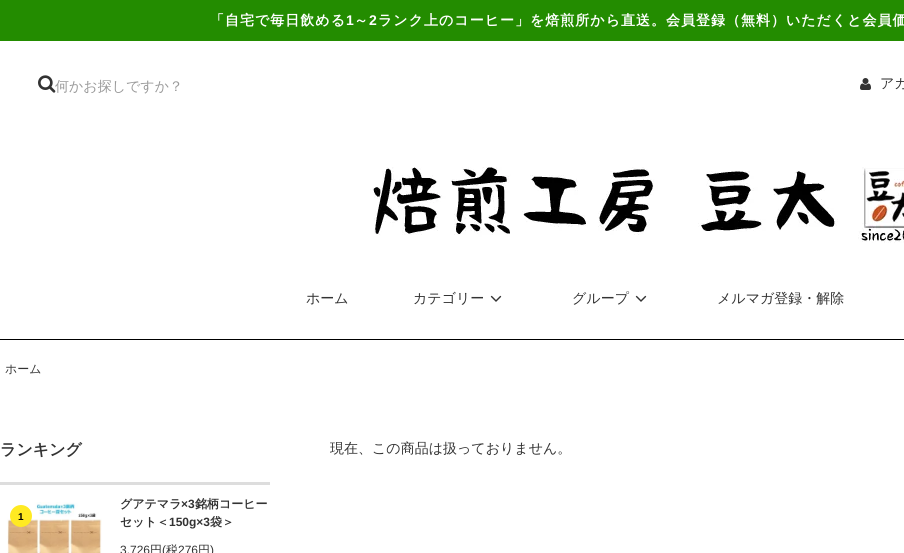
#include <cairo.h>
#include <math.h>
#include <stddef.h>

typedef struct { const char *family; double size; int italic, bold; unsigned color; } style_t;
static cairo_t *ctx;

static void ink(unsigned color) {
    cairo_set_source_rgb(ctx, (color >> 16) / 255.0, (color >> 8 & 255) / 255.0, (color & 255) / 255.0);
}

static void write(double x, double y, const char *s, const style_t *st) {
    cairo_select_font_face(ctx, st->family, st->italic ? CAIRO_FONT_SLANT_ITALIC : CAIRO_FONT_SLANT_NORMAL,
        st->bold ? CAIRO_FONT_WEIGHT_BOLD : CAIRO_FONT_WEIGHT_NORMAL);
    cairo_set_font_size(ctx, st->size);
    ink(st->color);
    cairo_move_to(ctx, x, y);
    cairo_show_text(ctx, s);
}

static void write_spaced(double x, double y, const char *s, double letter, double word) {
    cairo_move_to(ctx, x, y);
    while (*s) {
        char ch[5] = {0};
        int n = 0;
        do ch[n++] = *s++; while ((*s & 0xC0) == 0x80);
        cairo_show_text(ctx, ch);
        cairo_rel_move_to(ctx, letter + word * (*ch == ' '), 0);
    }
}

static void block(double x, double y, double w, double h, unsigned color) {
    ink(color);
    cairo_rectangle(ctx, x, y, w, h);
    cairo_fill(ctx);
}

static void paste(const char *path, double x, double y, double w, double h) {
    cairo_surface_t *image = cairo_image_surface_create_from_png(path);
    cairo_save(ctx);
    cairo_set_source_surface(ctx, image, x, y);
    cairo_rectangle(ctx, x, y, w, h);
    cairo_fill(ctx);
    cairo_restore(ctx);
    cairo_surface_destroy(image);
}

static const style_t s1 = {"WenQuanYi Zen Hei Medium", 14, 0, 0, 0x999999};
static const style_t s2 = {"WenQuanYi Zen Hei Medium", 14, 0, 0, 0x333333};
static const style_t s3 = {"WenQuanYi Zen Hei Medium", 12, 0, 0, 0x333333};
static const style_t s4 = {"WenQuanYi Zen Hei", 16, 0, 1, 0x333333};
static const style_t s5 = {"Liberation Sans", 10, 0, 1, 0x000000};
static const style_t s6 = {"WenQuanYi Zen Hei", 12, 0, 1, 0x333333};
static const style_t s7 = {"Liberation Sans", 12, 0, 1, 0x333333};
static const style_t s8 = {"Liberation Sans", 12, 0, 0, 0x333333};

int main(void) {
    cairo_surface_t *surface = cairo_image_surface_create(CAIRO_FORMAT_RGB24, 904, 553);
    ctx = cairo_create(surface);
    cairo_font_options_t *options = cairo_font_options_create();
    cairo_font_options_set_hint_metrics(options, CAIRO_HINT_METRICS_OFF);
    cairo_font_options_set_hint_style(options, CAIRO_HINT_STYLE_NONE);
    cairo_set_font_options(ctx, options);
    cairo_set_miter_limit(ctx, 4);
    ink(0xffffff);
    cairo_paint(ctx);
    block(0, 0, 904, 41, 0x238c00);
    cairo_select_font_face(ctx, "WenQuanYi Zen Hei", CAIRO_FONT_SLANT_NORMAL, CAIRO_FONT_WEIGHT_BOLD);
    cairo_set_font_size(ctx, 14);
    ink(0xffffff);
    write_spaced(210, 25, "「自宅で毎日飲める", 1, 0);
    cairo_select_font_face(ctx, "Liberation Sans", CAIRO_FONT_SLANT_NORMAL, CAIRO_FONT_WEIGHT_BOLD);
    write_spaced(346, 25, "1", 1, 0);
    cairo_select_font_face(ctx, "WenQuanYi Zen Hei", CAIRO_FONT_SLANT_NORMAL, CAIRO_FONT_WEIGHT_BOLD);
    write_spaced(354, 25, "～", 1, 0);
    cairo_select_font_face(ctx, "Liberation Sans", CAIRO_FONT_SLANT_NORMAL, CAIRO_FONT_WEIGHT_BOLD);
    write_spaced(369, 25, "2", 1, 0);
    cairo_select_font_face(ctx, "WenQuanYi Zen Hei", CAIRO_FONT_SLANT_NORMAL, CAIRO_FONT_WEIGHT_BOLD);
    write_spaced(378, 25, "ランク上のコーヒー」を焙煎所から直送。会員登録（無料）いただくと会員価", 1, 0);
    write(55, 91, "何かお探しですか？", &s1);
    paste("pic1.png", 38, 75, 18, 18);
    paste("pic2.png", 860, 78, 11, 12);
    write(880, 88, "アカ", &s2);
    paste("pic3.png", 370, 167, 534, 76);
    write(306, 303, "ホーム", &s2);
    write(413, 303, "カテゴリー", &s2);
    paste("pic4.png", 490, 295, 12, 7);
    write(572, 303, "グループ", &s2);
    paste("pic4.png", 635, 295, 12, 7);
    write(717, 303, "メルマガ登録・解除", &s2);
    block(0, 339, 904, 1, 0x000000);
    write(5, 373, "ホーム", &s3);
    block(0, 482, 270, 3, 0xdddddd);
    write(0, 455, "ランキング", &s4);
    paste("pic5.png", 7, 502, 95, 51);
    ink(0xffea22);
    cairo_arc(ctx, 21, 516, 11, 0, 2 * M_PI);
    cairo_fill(ctx);
    write(18, 520, "1", &s5);
    write(120, 508, "グアテマラ", &s6);
    write(181, 508, "×3", &s7);
    write(195, 508, "銘柄コーヒー", &s6);
    write(120, 526, "セット＜", &s6);
    write(169, 526, "150g×3", &s7);
    write(210, 526, "袋＞", &s6);
    write(120, 554, "3,726", &s8);
    write(150, 554, "円", &s3);
    write(162, 554, "(", &s8);
    write(166, 554, "税", &s3);
    write(178, 554, "276", &s8);
    write(198, 554, "円", &s3);
    write(210, 554, ")", &s8);
    write(330, 453, "現在、この商品は扱っておりません。", &s2);
    cairo_surface_write_to_png(surface, "screenshot.png");
    cairo_font_options_destroy(options);
    cairo_destroy(ctx);
    cairo_surface_destroy(surface);
    return 0;
}
